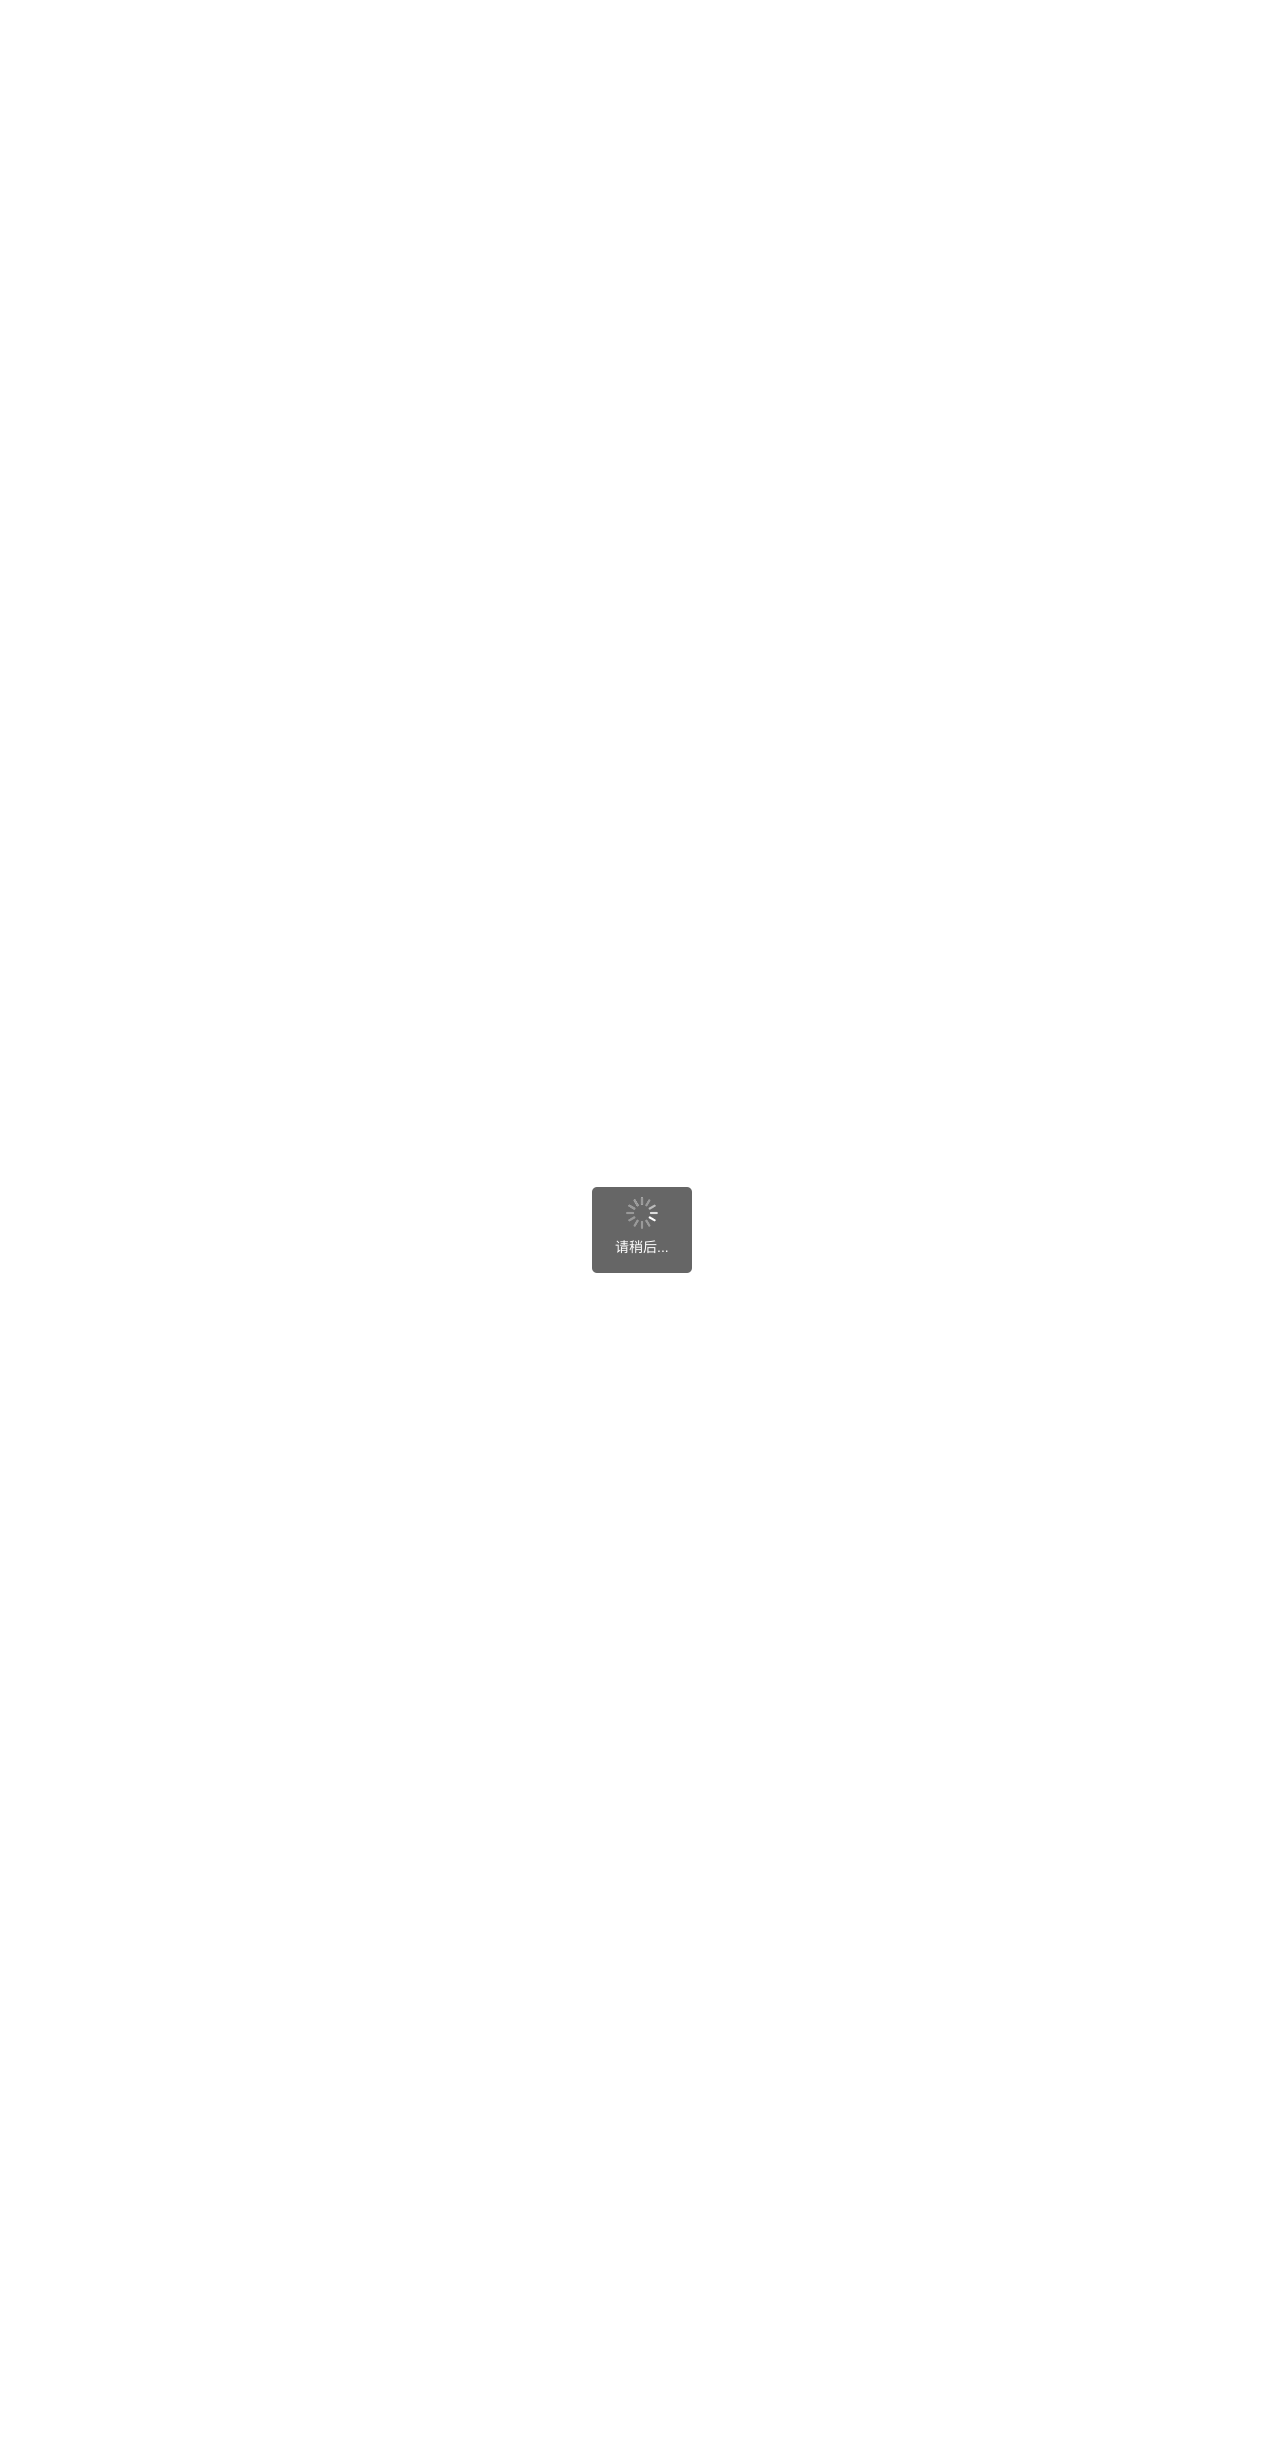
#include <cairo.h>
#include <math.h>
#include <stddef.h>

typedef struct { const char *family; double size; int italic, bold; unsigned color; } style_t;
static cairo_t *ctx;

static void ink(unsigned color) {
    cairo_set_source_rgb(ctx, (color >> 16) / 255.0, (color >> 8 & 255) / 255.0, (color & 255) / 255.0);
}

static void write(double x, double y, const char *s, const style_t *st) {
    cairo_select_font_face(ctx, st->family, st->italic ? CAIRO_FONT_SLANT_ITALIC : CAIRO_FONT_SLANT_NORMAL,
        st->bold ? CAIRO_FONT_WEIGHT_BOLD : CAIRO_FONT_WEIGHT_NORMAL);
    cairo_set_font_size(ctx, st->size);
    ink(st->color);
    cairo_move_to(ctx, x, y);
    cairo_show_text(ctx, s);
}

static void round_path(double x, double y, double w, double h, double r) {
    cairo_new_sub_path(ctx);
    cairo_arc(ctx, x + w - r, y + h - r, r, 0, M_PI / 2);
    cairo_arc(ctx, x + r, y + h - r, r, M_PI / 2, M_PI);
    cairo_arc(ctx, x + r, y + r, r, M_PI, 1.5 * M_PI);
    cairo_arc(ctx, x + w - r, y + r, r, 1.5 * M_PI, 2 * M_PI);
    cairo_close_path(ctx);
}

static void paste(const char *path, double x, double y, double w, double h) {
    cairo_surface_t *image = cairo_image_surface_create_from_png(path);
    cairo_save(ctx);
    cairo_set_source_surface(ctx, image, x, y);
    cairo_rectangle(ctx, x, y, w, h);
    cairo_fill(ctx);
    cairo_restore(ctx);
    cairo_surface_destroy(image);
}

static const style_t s1 = {"Noto Sans CJK SC", 14, 0, 0, 0xffffff};
static const style_t s2 = {"Liberation Sans", 14, 0, 0, 0xffffff};

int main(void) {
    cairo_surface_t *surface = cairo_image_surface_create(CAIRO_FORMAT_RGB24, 1283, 2459);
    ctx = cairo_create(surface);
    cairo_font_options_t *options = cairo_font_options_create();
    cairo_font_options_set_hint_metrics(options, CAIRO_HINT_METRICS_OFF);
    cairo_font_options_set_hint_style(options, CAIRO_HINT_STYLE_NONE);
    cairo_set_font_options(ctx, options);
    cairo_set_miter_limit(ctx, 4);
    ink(0xffffff);
    cairo_paint(ctx);
    ink(0x666666);
    round_path(592, 1187, 100, 86, 5);
    cairo_fill(ctx);
    paste("pic1.png", 626, 1197, 32, 32);
    write(615, 1252, "请稍后", &s1);
    write(657, 1252, "...", &s2);
    cairo_surface_write_to_png(surface, "screenshot.png");
    cairo_font_options_destroy(options);
    cairo_destroy(ctx);
    cairo_surface_destroy(surface);
    return 0;
}
